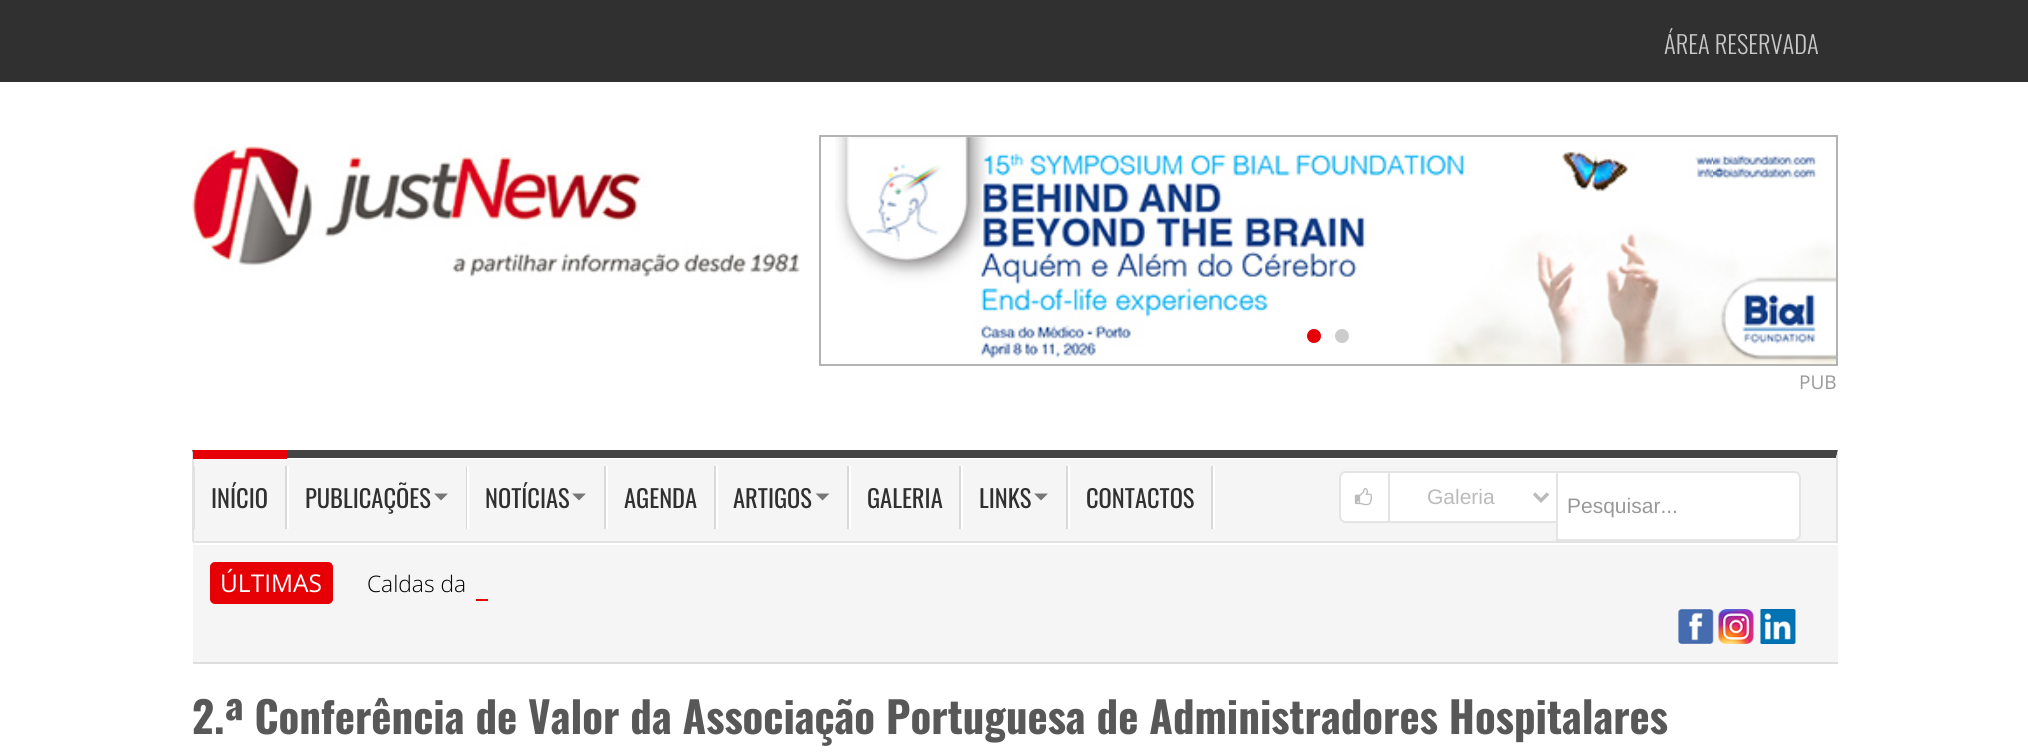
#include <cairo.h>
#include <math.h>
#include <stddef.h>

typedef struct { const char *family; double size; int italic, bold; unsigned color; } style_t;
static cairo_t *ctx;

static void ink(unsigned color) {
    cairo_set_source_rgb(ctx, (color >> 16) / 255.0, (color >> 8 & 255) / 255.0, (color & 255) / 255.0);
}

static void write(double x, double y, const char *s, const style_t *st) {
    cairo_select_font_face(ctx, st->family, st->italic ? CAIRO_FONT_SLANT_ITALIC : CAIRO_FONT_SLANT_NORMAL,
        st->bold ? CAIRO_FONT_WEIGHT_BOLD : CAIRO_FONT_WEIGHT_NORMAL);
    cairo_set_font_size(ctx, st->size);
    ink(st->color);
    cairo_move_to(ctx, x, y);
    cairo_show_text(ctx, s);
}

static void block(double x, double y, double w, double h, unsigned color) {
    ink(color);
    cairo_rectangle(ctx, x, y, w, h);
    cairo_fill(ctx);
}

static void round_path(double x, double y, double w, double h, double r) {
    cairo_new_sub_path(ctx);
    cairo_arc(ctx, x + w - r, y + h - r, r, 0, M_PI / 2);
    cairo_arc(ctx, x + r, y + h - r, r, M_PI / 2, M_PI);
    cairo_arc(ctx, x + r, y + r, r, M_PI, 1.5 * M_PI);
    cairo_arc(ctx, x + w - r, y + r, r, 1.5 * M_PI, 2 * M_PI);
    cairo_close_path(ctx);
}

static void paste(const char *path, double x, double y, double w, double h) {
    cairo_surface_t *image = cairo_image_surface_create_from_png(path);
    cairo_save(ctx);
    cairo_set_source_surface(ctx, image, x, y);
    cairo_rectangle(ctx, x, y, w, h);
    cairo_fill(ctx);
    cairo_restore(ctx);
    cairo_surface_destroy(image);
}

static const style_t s1 = {"Oswald Light", 24.5, 0, 0, 0xc8c8c8};
static const style_t s2 = {"Open Sans", 19, 0, 0, 0x999999};
static const style_t s3 = {"Oswald", 24.5, 0, 0, 0x303030};
static const style_t s4 = {"Liberation Sans", 21, 0, 0, 0xbbbbbb};
static const style_t s5 = {"Liberation Sans", 21, 0, 0, 0x999999};
static const style_t s6 = {"Open Sans", 24.5, 0, 0, 0xffffff};
static const style_t s7 = {"Open Sans Light", 22.75, 0, 0, 0x000000};
static const style_t s8 = {"Oswald", 42.9, 0, 1, 0x585858};

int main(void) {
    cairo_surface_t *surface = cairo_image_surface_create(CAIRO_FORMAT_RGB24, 2028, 754);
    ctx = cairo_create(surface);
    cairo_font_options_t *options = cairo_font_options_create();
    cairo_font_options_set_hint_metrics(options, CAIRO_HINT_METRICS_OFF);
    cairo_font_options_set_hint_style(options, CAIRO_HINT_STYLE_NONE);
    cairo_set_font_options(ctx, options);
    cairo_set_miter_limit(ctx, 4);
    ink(0xffffff);
    cairo_paint(ctx);
    block(0, 0, 2028, 82, 0x303030);
    write(1664, 54, "ÁREA RESERVADA", &s1);
    paste("pic1.png", 192, 146, 608, 131);
    cairo_rectangle(ctx, 820, 136, 1017, 229);
    ink(0xb3b3b3);
    cairo_stroke(ctx);
    paste("pic2.png", 835, 137, 1001, 227);
    ink(0xe60005);
    cairo_arc(ctx, 1314, 336, 7, 0, 2 * M_PI);
    cairo_fill(ctx);
    ink(0xcccccc);
    cairo_arc(ctx, 1342, 336, 7, 0, 2 * M_PI);
    cairo_fill(ctx);
    write(1799, 389, "PUB", &s2);
    block(194, 459, 1642, 82, 0xf5f5f5);
    ink(0x444444);
    cairo_new_path(ctx);
    cairo_move_to(ctx, 192, 450);
    cairo_line_to(ctx, 1838, 450);
    cairo_line_to(ctx, 1836, 458);
    cairo_line_to(ctx, 194, 458);
    cairo_close_path(ctx);
    cairo_fill(ctx);
    ink(0xe2e2e2);
    cairo_new_path(ctx);
    cairo_move_to(ctx, 1838, 450);
    cairo_line_to(ctx, 1838, 542);
    cairo_line_to(ctx, 1836, 541);
    cairo_line_to(ctx, 1836, 458);
    cairo_close_path(ctx);
    cairo_fill(ctx);
    block(193, 541, 1645, 2, 0xe2e2e2);
    cairo_new_path(ctx);
    cairo_move_to(ctx, 192, 542);
    cairo_line_to(ctx, 192, 450);
    cairo_line_to(ctx, 194, 458);
    cairo_line_to(ctx, 194, 541);
    cairo_close_path(ctx);
    cairo_fill(ctx);
    block(193, 450, 94, 9, 0xe60005);
    block(285, 466, 2, 63, 0xd9d9d9);
    block(194, 466, 1, 63, 0xe2e2e2);
    write(211, 508, "INÍCIO", &s3);
    block(287, 466, 2, 63, 0xffffff);
    block(466, 466, 1, 63, 0xd9d9d9);
    write(305, 508, "PUBLICAÇÕES", &s3);
    ink(0x777777);
    cairo_new_path(ctx);
    cairo_move_to(ctx, 434, 493.5);
    cairo_line_to(ctx, 448, 493.5);
    cairo_line_to(ctx, 441, 500.5);
    cairo_close_path(ctx);
    cairo_fill(ctx);
    block(467, 466, 2, 63, 0xffffff);
    block(604, 466, 2, 63, 0xd9d9d9);
    write(485, 508, "NOTÍCIAS", &s3);
    ink(0x777777);
    cairo_new_path(ctx);
    cairo_move_to(ctx, 572, 493.5);
    cairo_line_to(ctx, 586, 493.5);
    cairo_line_to(ctx, 579, 500.5);
    cairo_close_path(ctx);
    cairo_fill(ctx);
    block(606, 466, 2, 63, 0xffffff);
    block(714, 466, 2, 63, 0xd9d9d9);
    write(624, 508, "AGENDA", &s3);
    block(716, 466, 2, 63, 0xffffff);
    block(847, 466, 2, 63, 0xd9d9d9);
    write(733, 508, "ARTIGOS", &s3);
    ink(0x777777);
    cairo_new_path(ctx);
    cairo_move_to(ctx, 815.5, 493.5);
    cairo_line_to(ctx, 829.5, 493.5);
    cairo_line_to(ctx, 822.5, 500.5);
    cairo_close_path(ctx);
    cairo_fill(ctx);
    block(849, 466, 2, 63, 0xffffff);
    block(959, 466, 2, 63, 0xd9d9d9);
    write(867, 508, "GALERIA", &s3);
    block(961, 466, 2, 63, 0xffffff);
    block(1066, 466, 2, 63, 0xd9d9d9);
    write(979, 508, "LINKS", &s3);
    ink(0x777777);
    cairo_new_path(ctx);
    cairo_move_to(ctx, 1034, 493.5);
    cairo_line_to(ctx, 1048, 493.5);
    cairo_line_to(ctx, 1041, 500.5);
    cairo_close_path(ctx);
    cairo_fill(ctx);
    block(1068, 466, 2, 63, 0xffffff);
    block(1211, 466, 2, 63, 0xd9d9d9);
    write(1086, 508, "CONTACTOS", &s3);
    block(1213, 466, 2, 63, 0xffffff);
    cairo_new_path(ctx);
    cairo_move_to(ctx, 1346, 472);
    cairo_line_to(ctx, 1389, 472);
    cairo_line_to(ctx, 1389, 522);
    cairo_line_to(ctx, 1346, 522);
    cairo_curve_to(ctx, 1342.5, 522, 1340, 519.5, 1340, 516);
    cairo_line_to(ctx, 1340, 478);
    cairo_curve_to(ctx, 1340, 474.5, 1342.5, 472, 1346, 472);
    cairo_close_path(ctx);
    cairo_fill_preserve(ctx);
    ink(0xe4e4e4);
    cairo_stroke(ctx);
    paste("pic3.png", 1354, 488, 18, 18);
    ink(0xffffff);
    cairo_rectangle(ctx, 1389, 472, 168, 50);
    cairo_fill_preserve(ctx);
    ink(0xe4e4e4);
    cairo_stroke(ctx);
    cairo_new_path(ctx);
    cairo_move_to(ctx, 1534, 493.5);
    cairo_line_to(ctx, 1541, 500.5);
    cairo_line_to(ctx, 1548, 493.5);
    ink(0xbbbbbb);
    cairo_set_line_width(ctx, 3.5);
    cairo_stroke(ctx);
    write(1427, 504, "Galeria", &s4);
    ink(0xffffff);
    cairo_new_path(ctx);
    cairo_move_to(ctx, 1557, 472);
    cairo_line_to(ctx, 1794, 472);
    cairo_curve_to(ctx, 1797.5, 472, 1800, 474.5, 1800, 478);
    cairo_line_to(ctx, 1800, 534);
    cairo_curve_to(ctx, 1800, 537.5, 1797.5, 540, 1794, 540);
    cairo_line_to(ctx, 1557, 540);
    cairo_close_path(ctx);
    cairo_fill_preserve(ctx);
    ink(0xe4e4e4);
    cairo_set_line_width(ctx, 2);
    cairo_stroke(ctx);
    write(1567, 513, "Pesquisar...", &s5);
    block(193, 545, 1645, 117, 0xf5f5f5);
    block(193, 662, 1645, 2, 0xdedede);
    ink(0xe60005);
    round_path(210, 562, 123, 42, 5);
    cairo_fill(ctx);
    write(220, 592, "ÚLTIMAS", &s6);
    write(367, 592, "Caldas da", &s7);
    block(476, 599, 12, 2, 0xe60005);
    paste("pic4.png", 1678, 609, 36, 35);
    paste("pic5.png", 1718, 609, 36, 35);
    paste("pic6.png", 1760, 609, 36, 35);
    write(192, 734, "2.ª Conferência de Valor da Associação Portuguesa de Administradores Hospitalares", &s8);
    cairo_surface_write_to_png(surface, "screenshot.png");
    cairo_font_options_destroy(options);
    cairo_destroy(ctx);
    cairo_surface_destroy(surface);
    return 0;
}
